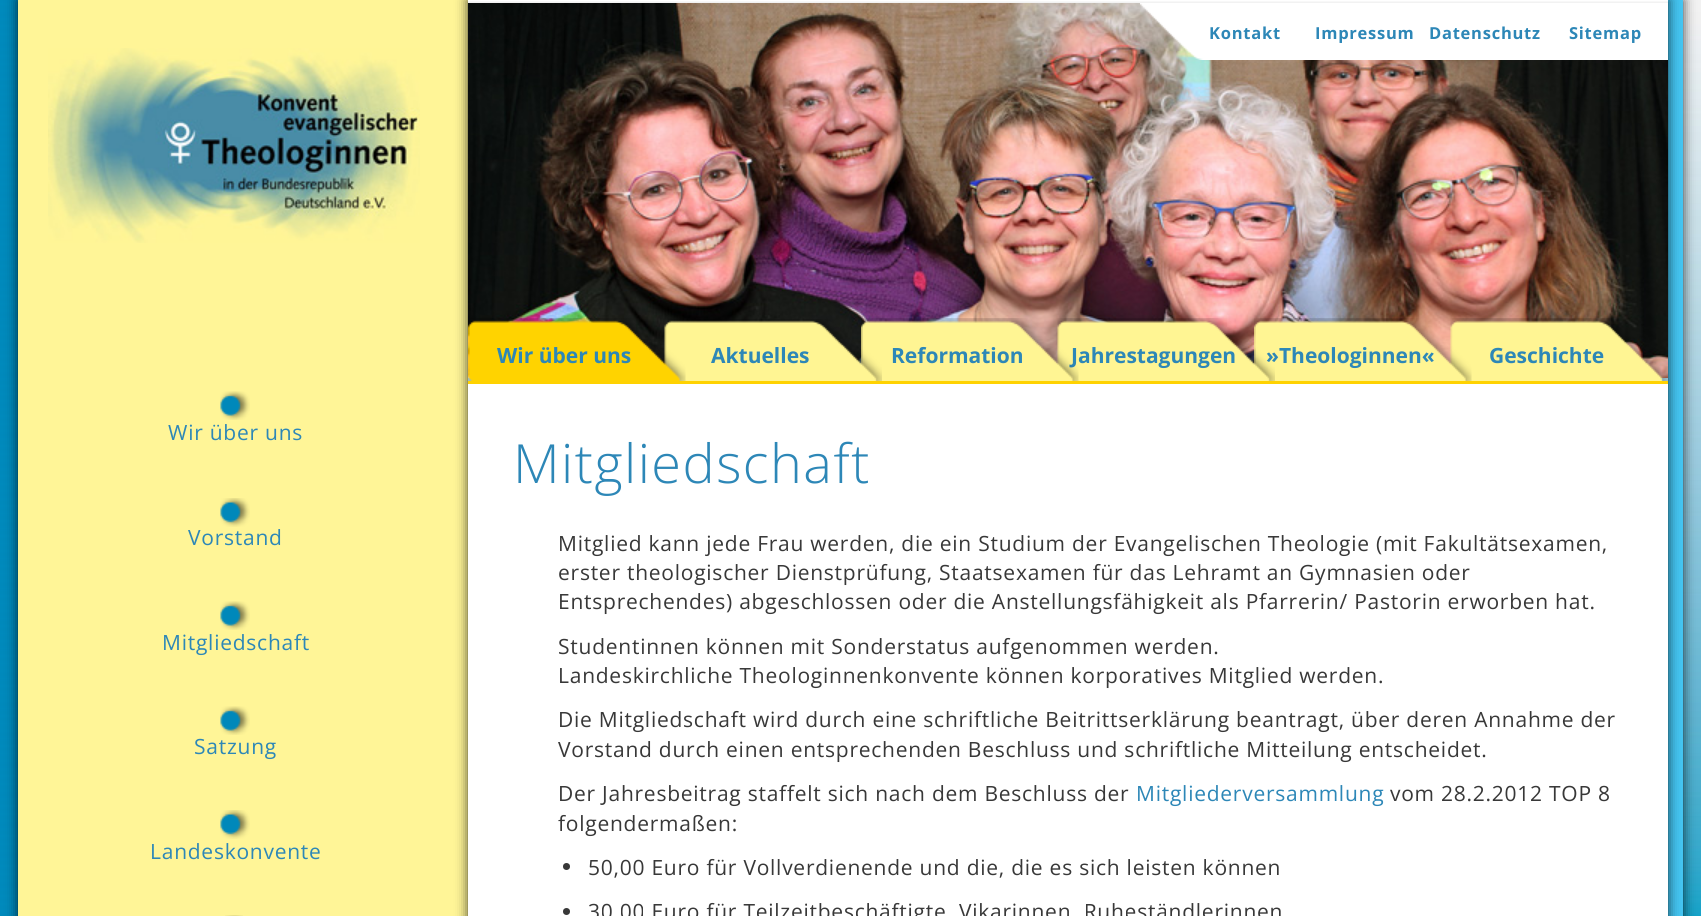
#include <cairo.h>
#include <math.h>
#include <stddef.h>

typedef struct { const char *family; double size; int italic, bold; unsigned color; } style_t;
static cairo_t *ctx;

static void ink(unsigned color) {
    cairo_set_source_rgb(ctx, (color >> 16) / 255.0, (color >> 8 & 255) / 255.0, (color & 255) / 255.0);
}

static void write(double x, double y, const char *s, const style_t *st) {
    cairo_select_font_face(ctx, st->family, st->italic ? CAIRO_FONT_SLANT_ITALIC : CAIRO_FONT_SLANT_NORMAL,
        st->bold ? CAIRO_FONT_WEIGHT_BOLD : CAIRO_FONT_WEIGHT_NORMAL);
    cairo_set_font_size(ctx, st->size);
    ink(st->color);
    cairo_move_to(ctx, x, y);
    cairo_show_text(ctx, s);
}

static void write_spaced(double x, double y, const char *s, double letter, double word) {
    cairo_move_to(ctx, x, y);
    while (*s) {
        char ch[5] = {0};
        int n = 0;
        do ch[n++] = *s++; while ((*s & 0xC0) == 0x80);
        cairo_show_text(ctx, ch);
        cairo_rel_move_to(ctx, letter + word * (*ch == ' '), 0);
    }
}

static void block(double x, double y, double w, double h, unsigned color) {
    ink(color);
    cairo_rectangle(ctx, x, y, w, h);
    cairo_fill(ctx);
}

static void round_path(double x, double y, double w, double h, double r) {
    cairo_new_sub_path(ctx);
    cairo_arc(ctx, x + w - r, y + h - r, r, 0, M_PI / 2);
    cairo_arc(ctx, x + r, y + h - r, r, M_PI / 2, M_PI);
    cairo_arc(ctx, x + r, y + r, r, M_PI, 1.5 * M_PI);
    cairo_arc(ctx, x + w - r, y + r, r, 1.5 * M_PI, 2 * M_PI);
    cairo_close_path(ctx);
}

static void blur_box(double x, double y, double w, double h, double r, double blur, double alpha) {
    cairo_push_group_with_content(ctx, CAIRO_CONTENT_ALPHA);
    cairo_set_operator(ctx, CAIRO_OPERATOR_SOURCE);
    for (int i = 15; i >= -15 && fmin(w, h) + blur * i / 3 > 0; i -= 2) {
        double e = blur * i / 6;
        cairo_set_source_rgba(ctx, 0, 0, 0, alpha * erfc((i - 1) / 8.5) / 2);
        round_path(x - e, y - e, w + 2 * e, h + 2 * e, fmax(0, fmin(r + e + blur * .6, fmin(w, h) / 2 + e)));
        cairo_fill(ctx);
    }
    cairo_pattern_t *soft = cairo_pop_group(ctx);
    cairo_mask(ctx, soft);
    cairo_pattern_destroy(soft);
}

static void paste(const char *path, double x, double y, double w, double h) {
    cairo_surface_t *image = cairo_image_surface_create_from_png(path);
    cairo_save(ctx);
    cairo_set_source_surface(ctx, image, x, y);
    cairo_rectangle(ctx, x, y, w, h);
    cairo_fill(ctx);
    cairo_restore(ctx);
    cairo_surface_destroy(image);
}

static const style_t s1 = {"Open Sans", 21, 0, 1, 0x2d87b7};

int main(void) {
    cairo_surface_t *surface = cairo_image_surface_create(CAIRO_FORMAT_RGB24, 1701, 916);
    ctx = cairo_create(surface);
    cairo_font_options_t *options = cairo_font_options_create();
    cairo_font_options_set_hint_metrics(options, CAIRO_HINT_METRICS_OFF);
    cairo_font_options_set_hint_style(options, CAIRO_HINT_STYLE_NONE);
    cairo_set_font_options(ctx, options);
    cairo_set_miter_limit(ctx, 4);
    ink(0xffffff);
    cairo_paint(ctx);
    paste("pic1.png", 1683, 0, 18, 916);
    paste("pic2.png", 0, 0, 18, 916);
    ink(0x000000);
    blur_box(18, 0, 1665, 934, 0, 6, 0.75);
    block(18, 0, 450, 916, 0xfff597);
    block(1668, 0, 15, 916, 0x44c5f2);
    paste("pic3.png", 48, 48, 372, 195);
    paste("pic4.png", 220, 391, 30, 29);
    cairo_select_font_face(ctx, "Open Sans", CAIRO_FONT_SLANT_NORMAL, CAIRO_FONT_WEIGHT_NORMAL);
    cairo_set_font_size(ctx, 21);
    ink(0x2d87b7);
    write_spaced(168, 440, "Wir über uns", 0.75, 0);
    paste("pic5.png", 220, 498, 30, 29);
    write_spaced(188, 545, "Vorstand", 0.75, 0);
    paste("pic4.png", 220, 601, 30, 29);
    write_spaced(162, 650, "Mitgliedschaft", 0.75, 0);
    paste("pic4.png", 220, 706, 30, 29);
    write_spaced(194, 754, "Satzung", 0.75, 0);
    paste("pic5.png", 220, 810, 30, 29);
    write_spaced(150, 859, "Landeskonvente", 0.75, 0);
    paste("pic6.png", 225, 915, 18, 1);
    ink(0x000000);
    blur_box(468, 0, 1200, 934, 0, 6, 0.75);
    block(468, 0, 1200, 916, 0xffffff);
    paste("pic7.png", 468, 1, 1200, 380);
    paste("pic8.png", 468, 3, 1200, 375);
    paste("pic9.png", 1140, 3, 528, 57);
    cairo_select_font_face(ctx, "Open Sans", CAIRO_FONT_SLANT_NORMAL, CAIRO_FONT_WEIGHT_BOLD);
    cairo_set_font_size(ctx, 16.5);
    ink(0x2d87b7);
    write_spaced(1209, 39, "Kontakt", 0.75, 0);
    write_spaced(1315, 39, "Impressum", 0.75, 0);
    write_spaced(1429, 39, "Datenschutz", 0.75, 0);
    write_spaced(1569, 39, "Sitemap", 0.75, 0);
    paste("pic15.png", 1450, 318, 218, 63);
    paste("pic14.png", 1254, 318, 218, 63);
    write(1266, 363, "»Theologinnen«", &s1);
    paste("pic13.png", 1057, 318, 218, 63);
    write(1071, 363, "Jahrestagungen", &s1);
    paste("pic12.png", 861, 318, 218, 63);
    paste("pic11.png", 664, 319, 218, 62);
    paste("pic10.png", 468, 318, 218, 63);
    write(497, 363, "Wir über uns", &s1);
    write(711, 363, "Aktuelles", &s1);
    write(891, 363, "Reformation", &s1);
    write(1489, 363, "Geschichte", &s1);
    block(468, 381, 1200, 3, 0xffd200);
    cairo_select_font_face(ctx, "Open Sans Light", CAIRO_FONT_SLANT_NORMAL, CAIRO_FONT_WEIGHT_NORMAL);
    cairo_set_font_size(ctx, 54);
    ink(0x2d87b7);
    write_spaced(513, 483, "Mitgliedschaft", 1.5, 0);
    cairo_select_font_face(ctx, "Open Sans", CAIRO_FONT_SLANT_NORMAL, CAIRO_FONT_WEIGHT_NORMAL);
    cairo_set_font_size(ctx, 21);
    ink(0x383838);
    write_spaced(558, 551, "Mitglied kann jede Frau werden, die ein Studium der Evangelischen Theologie (mit Fakultätsexamen,", 0.75, 0);
    write_spaced(558, 580, "erster theologischer Dienstprüfung, Staatsexamen für das Lehramt an Gymnasien oder", 0.75, 0);
    write_spaced(558, 609, "Entsprechendes) abgeschlossen oder die Anstellungsfähigkeit als Pfarrerin/ Pastorin erworben hat.", 0.75, 0);
    write_spaced(558, 654, "Studentinnen können mit Sonderstatus aufgenommen werden.", 0.75, 0);
    write_spaced(558, 683, "Landeskirchliche Theologinnenkonvente können korporatives Mitglied werden.", 0.75, 0);
    write_spaced(558, 727, "Die Mitgliedschaft wird durch eine schriftliche Beitrittserklärung beantragt, über deren Annahme der", 0.75, 0);
    write_spaced(558, 757, "Vorstand durch einen entsprechenden Beschluss und schriftliche Mitteilung entscheidet.", 0.75, 0);
    write_spaced(558, 801, "Der Jahresbeitrag staffelt sich nach dem Beschluss der", 0.75, 0);
    ink(0x2d87b7);
    write_spaced(1136, 801, "Mitgliederversammlung", 0.75, 0);
    ink(0x383838);
    write_spaced(1390, 801, "vom 28.2.2012 TOP 8", 0.75, 0);
    write_spaced(558, 831, "folgendermaßen:", 0.75, 0);
    cairo_new_path(ctx);
    cairo_arc(ctx, 566.5, 866.5, 3.5, 0, 2 * M_PI);
    cairo_fill(ctx);
    write_spaced(588, 875, "50,00 Euro für Vollverdienende und die, die es sich leisten können", 0.75, 0);
    cairo_new_path(ctx);
    cairo_arc(ctx, 566.5, 911.5, 3.5, 0, 2 * M_PI);
    cairo_fill(ctx);
    write_spaced(588, 919, "30,00 Euro für Teilzeitbeschäftigte, Vikarinnen, Ruheständlerinnen", 0.75, 0);
    cairo_surface_write_to_png(surface, "screenshot.png");
    cairo_font_options_destroy(options);
    cairo_destroy(ctx);
    cairo_surface_destroy(surface);
    return 0;
}
